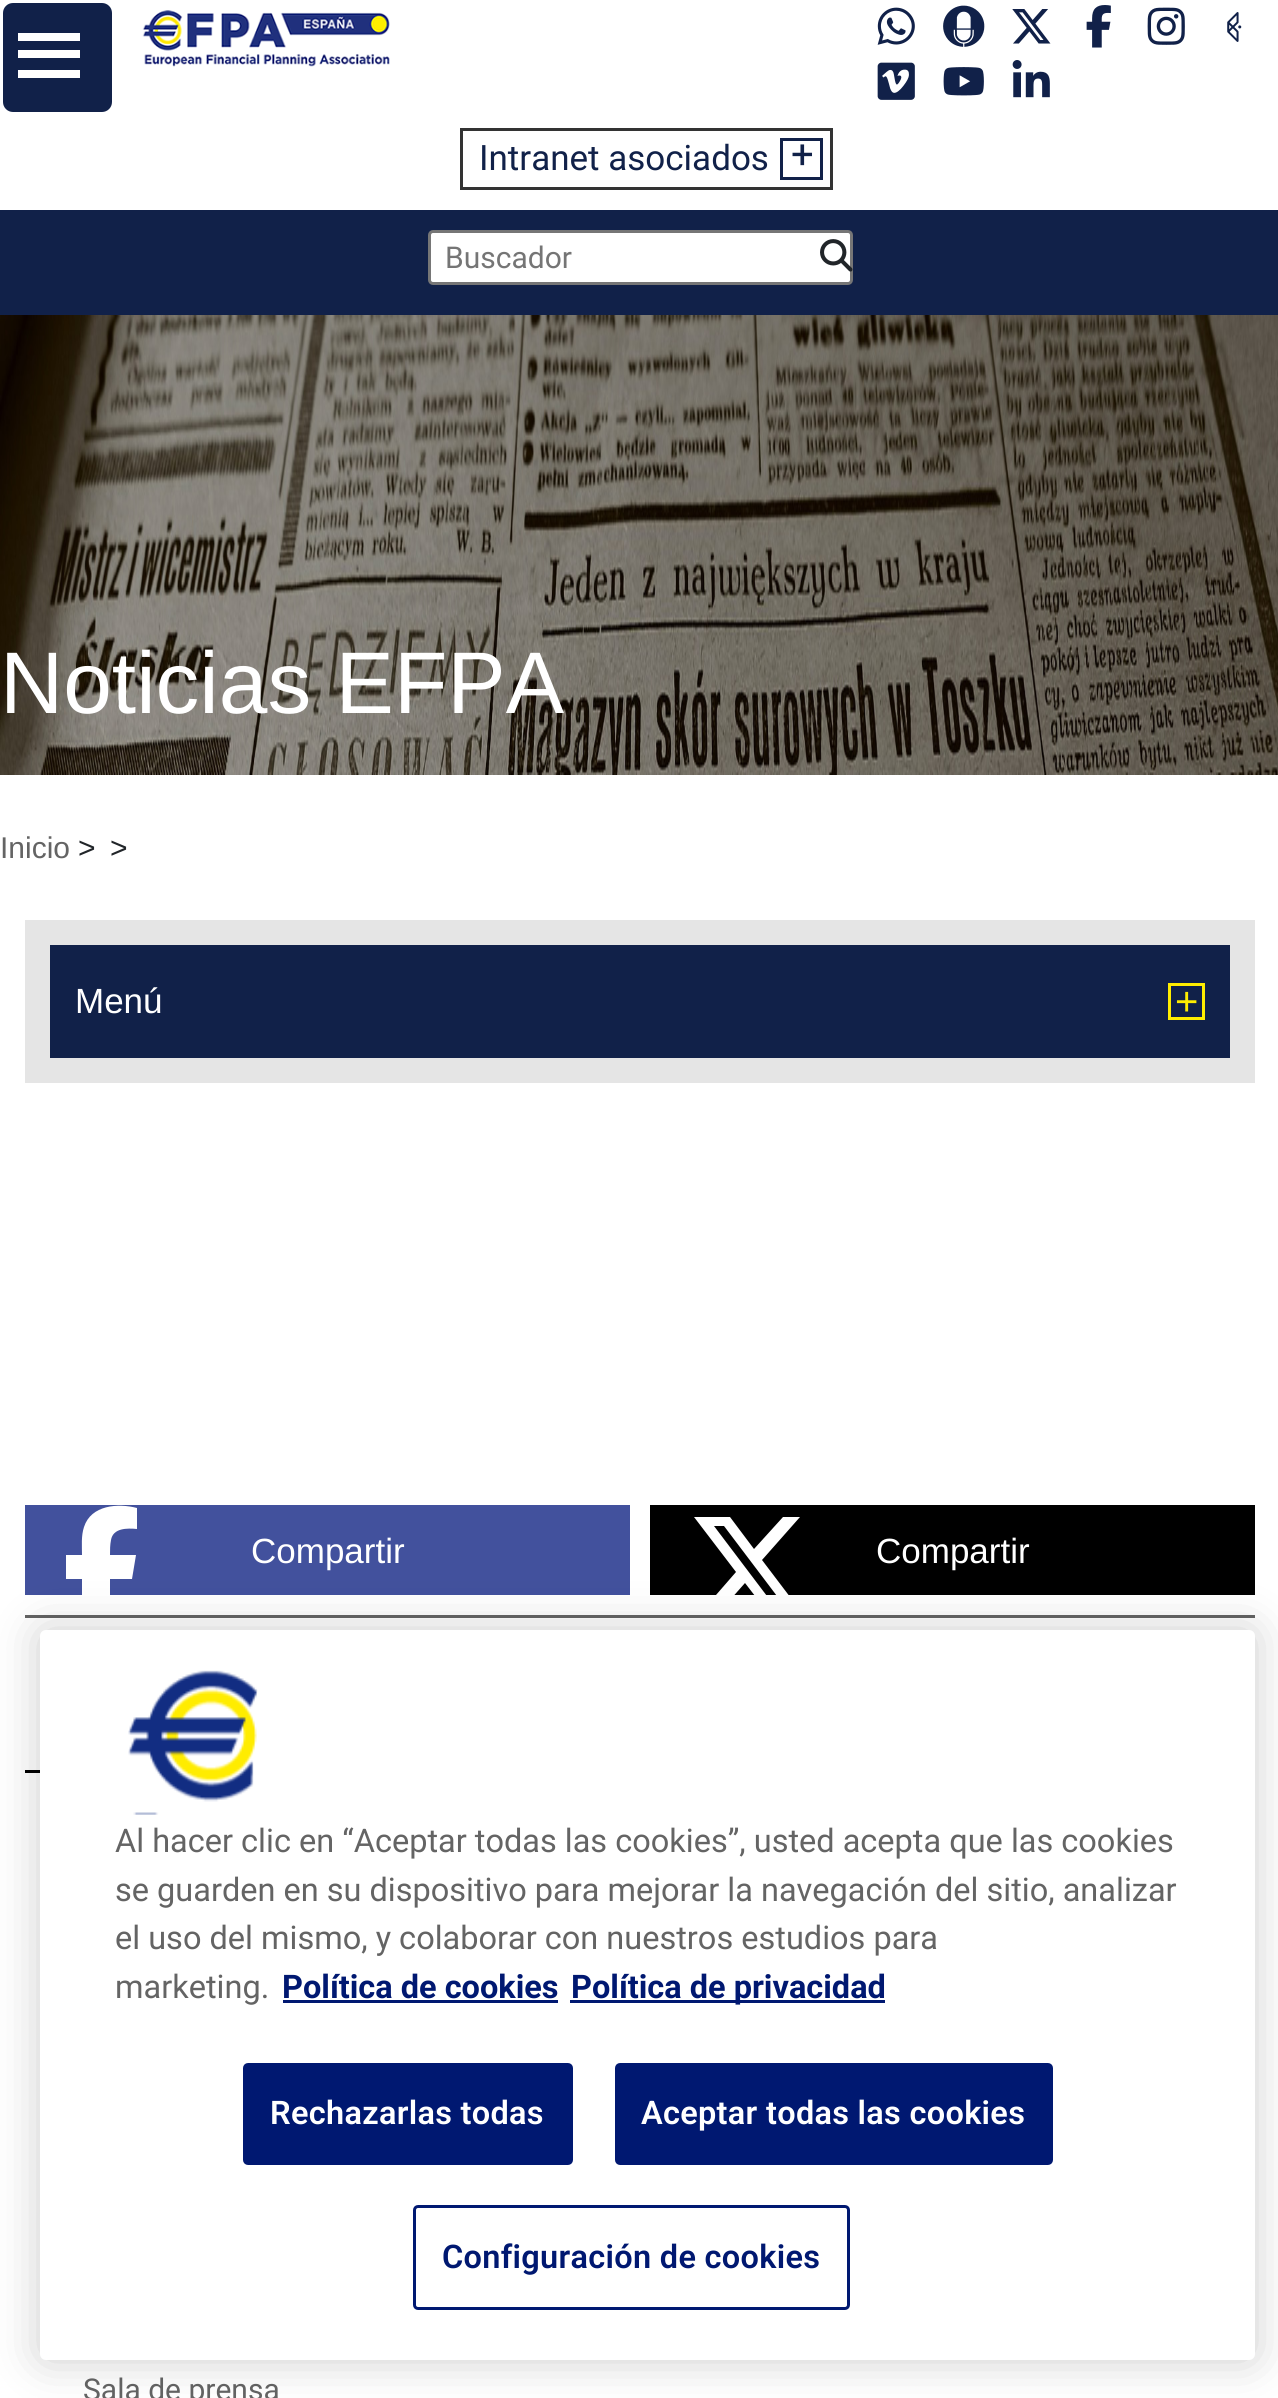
#include <cairo.h>
#include <math.h>
#include <stddef.h>

typedef struct { const char *family; double size; int italic, bold; unsigned color; } style_t;
static cairo_t *ctx;

static void ink(unsigned color) {
    cairo_set_source_rgb(ctx, (color >> 16) / 255.0, (color >> 8 & 255) / 255.0, (color & 255) / 255.0);
}

static void write(double x, double y, const char *s, const style_t *st) {
    cairo_select_font_face(ctx, st->family, st->italic ? CAIRO_FONT_SLANT_ITALIC : CAIRO_FONT_SLANT_NORMAL,
        st->bold ? CAIRO_FONT_WEIGHT_BOLD : CAIRO_FONT_WEIGHT_NORMAL);
    cairo_set_font_size(ctx, st->size);
    ink(st->color);
    cairo_move_to(ctx, x, y);
    cairo_show_text(ctx, s);
}

static void write_spaced(double x, double y, const char *s, double letter, double word) {
    cairo_move_to(ctx, x, y);
    while (*s) {
        char ch[5] = {0};
        int n = 0;
        do ch[n++] = *s++; while ((*s & 0xC0) == 0x80);
        cairo_show_text(ctx, ch);
        cairo_rel_move_to(ctx, letter + word * (*ch == ' '), 0);
    }
}

static void block(double x, double y, double w, double h, unsigned color) {
    ink(color);
    cairo_rectangle(ctx, x, y, w, h);
    cairo_fill(ctx);
}

static void round_path(double x, double y, double w, double h, double r) {
    cairo_new_sub_path(ctx);
    cairo_arc(ctx, x + w - r, y + h - r, r, 0, M_PI / 2);
    cairo_arc(ctx, x + r, y + h - r, r, M_PI / 2, M_PI);
    cairo_arc(ctx, x + r, y + r, r, M_PI, 1.5 * M_PI);
    cairo_arc(ctx, x + w - r, y + r, r, 1.5 * M_PI, 2 * M_PI);
    cairo_close_path(ctx);
}

static void blur_box(double x, double y, double w, double h, double r, double blur, double alpha) {
    cairo_push_group_with_content(ctx, CAIRO_CONTENT_ALPHA);
    cairo_set_operator(ctx, CAIRO_OPERATOR_SOURCE);
    for (int i = 15; i >= -15 && fmin(w, h) + blur * i / 3 > 0; i -= 2) {
        double e = blur * i / 6;
        cairo_set_source_rgba(ctx, 0, 0, 0, alpha * erfc((i - 1) / 8.5) / 2);
        round_path(x - e, y - e, w + 2 * e, h + 2 * e, fmax(0, fmin(r + e + blur * .6, fmin(w, h) / 2 + e)));
        cairo_fill(ctx);
    }
    cairo_pattern_t *soft = cairo_pop_group(ctx);
    cairo_mask(ctx, soft);
    cairo_pattern_destroy(soft);
}

static void paste(const char *path, double x, double y, double w, double h) {
    cairo_surface_t *image = cairo_image_surface_create_from_png(path);
    cairo_save(ctx);
    cairo_set_source_surface(ctx, image, x, y);
    cairo_rectangle(ctx, x, y, w, h);
    cairo_fill(ctx);
    cairo_restore(ctx);
    cairo_surface_destroy(image);
}

static const style_t s1 = {"Roboto", 35, 0, 0, 0x112149};
static const style_t s2 = {"Roboto", 40, 0, 0, 0x112149};
static const style_t s3 = {"Roboto", 30, 0, 0, 0x757575};
static const style_t s4 = {"Liberation Sans", 87.5, 0, 0, 0xffffff};
static const style_t s5 = {"Liberation Sans", 30, 0, 0, 0x646464};
static const style_t s6 = {"Liberation Sans", 30, 0, 0, 0x212529};
static const style_t s7 = {"Liberation Sans", 35, 0, 0, 0xffffff};
static const style_t s8 = {"Liberation Sans", 40, 0, 0, 0xffed00};
static const style_t s9 = {"Roboto", 30, 0, 0, 0x646464};
static const style_t s10 = {"Roboto", 32.5, 0, 0, 0x646464};
static const style_t s11 = {"Roboto", 32.5, 0, 1, 0x001871};

int main(void) {
    cairo_surface_t *surface = cairo_image_surface_create(CAIRO_FORMAT_RGB24, 1278, 2398);
    ctx = cairo_create(surface);
    cairo_font_options_t *options = cairo_font_options_create();
    cairo_font_options_set_hint_metrics(options, CAIRO_HINT_METRICS_OFF);
    cairo_font_options_set_hint_style(options, CAIRO_HINT_STYLE_NONE);
    cairo_set_font_options(ctx, options);
    cairo_set_miter_limit(ctx, 4);
    ink(0xffffff);
    cairo_paint(ctx);
    ink(0x112149);
    round_path(1.5, 1.5, 112, 112, 11.5);
    cairo_fill_preserve(ctx);
    ink(0xffffff);
    cairo_set_line_width(ctx, 3);
    cairo_stroke(ctx);
    block(18, 70, 62, 8, 0xffffff);
    block(18, 33, 62, 8, 0xffffff);
    block(18, 50, 62, 8, 0xffffff);
    paste("pic1.png", 142, 10, 248, 57);
    paste("pic2.png", 877, 7, 38, 38);
    paste("pic3.png", 943, 5, 42, 42);
    paste("pic4.png", 1012, 9, 39, 35);
    paste("pic5.png", 1086, 5, 25, 43);
    paste("pic6.png", 1147, 7, 38, 38);
    paste("pic7.png", 1227, 12, 15, 30);
    paste("pic8.png", 877, 62, 38, 38);
    paste("pic9.png", 943, 67, 41, 29);
    paste("pic10.png", 1012, 60, 38, 38);
    cairo_rectangle(ctx, 461.5, 129.5, 370, 59);
    ink(0x333333);
    cairo_stroke(ctx);
    write(479, 170, "Intranet asociados", &s1);
    cairo_rectangle(ctx, 781.5, 139.5, 40, 39);
    cairo_stroke(ctx);
    write(791, 168, "+", &s2);
    block(0, 210, 1278, 105, 0x112149);
    ink(0xffffff);
    round_path(429.5, 231.5, 422, 52, 3.5);
    cairo_fill_preserve(ctx);
    ink(0x767676);
    cairo_stroke(ctx);
    write(445, 268, "Buscador", &s3);
    paste("pic11.png", 820, 239, 33, 33);
    paste("pic12.png", 0, 315, 1278, 460);
    write(0, 713, "Noticias EFPA", &s4);
    write(0, 858, "Inicio", &s5);
    write(78, 858, ">", &s6);
    write(110, 858, ">", &s6);
    block(25, 920, 1230, 163, 0xe5e5e5);
    block(50, 945, 1180, 113, 0x112149);
    write(75, 1013, "Menú", &s7);
    cairo_rectangle(ctx, 1169.5, 984.5, 34, 34);
    ink(0xffed00);
    cairo_stroke(ctx);
    write(1175, 1015, "+", &s8);
    block(25, 1505, 605, 90, 0x42519d);
    cairo_save(ctx);
    cairo_rectangle(ctx, 25, 1505, 605, 90);
    cairo_clip(ctx);
    ink(0xffffff);
    cairo_new_path(ctx);
    cairo_move_to(ctx, 82, 1579);
    cairo_line_to(ctx, 82, 1631);
    cairo_line_to(ctx, 82, 1579);
    cairo_line_to(ctx, 82, 1631);
    cairo_line_to(ctx, 110, 1631);
    cairo_line_to(ctx, 110, 1579);
    cairo_line_to(ctx, 132, 1579);
    cairo_line_to(ctx, 136, 1555);
    cairo_line_to(ctx, 110, 1555);
    cairo_curve_to(ctx, 110, 1550, 110, 1545, 111, 1540);
    cairo_curve_to(ctx, 113, 1528, 127, 1528, 137, 1529);
    cairo_line_to(ctx, 137, 1508);
    cairo_curve_to(ctx, 118, 1503, 91, 1505, 84, 1527);
    cairo_curve_to(ctx, 81, 1536, 82, 1546, 82, 1555);
    cairo_line_to(ctx, 66, 1555);
    cairo_line_to(ctx, 66, 1579);
    cairo_close_path(ctx);
    cairo_fill(ctx);
    cairo_restore(ctx);
    write(251, 1563, "Compartir", &s7);
    block(650, 1505, 605, 90, 0x000000);
    cairo_save(ctx);
    cairo_rectangle(ctx, 650, 1505, 605, 90);
    cairo_clip(ctx);
    ink(0xffffff);
    cairo_new_path(ctx);
    cairo_move_to(ctx, 783, 1517);
    cairo_line_to(ctx, 800, 1517);
    cairo_line_to(ctx, 762, 1560);
    cairo_line_to(ctx, 806, 1618);
    cairo_line_to(ctx, 772, 1618);
    cairo_line_to(ctx, 745, 1583);
    cairo_line_to(ctx, 714, 1618);
    cairo_line_to(ctx, 696, 1618);
    cairo_line_to(ctx, 736, 1572);
    cairo_line_to(ctx, 694, 1517);
    cairo_line_to(ctx, 730, 1517);
    cairo_line_to(ctx, 754, 1549);
    cairo_close_path(ctx);
    cairo_move_to(ctx, 776, 1608);
    cairo_line_to(ctx, 786, 1608);
    cairo_line_to(ctx, 724, 1526);
    cairo_line_to(ctx, 714, 1526);
    cairo_close_path(ctx);
    cairo_fill(ctx);
    cairo_restore(ctx);
    write(876, 1563, "Compartir", &s7);
    block(25, 1615, 1230, 3, 0x646464);
    block(25, 1770, 15, 3, 0x000000);
    write(83, 2400, "Sala de prensa", &s9);
    ink(0x000000);
    blur_box(40, 1630, 1215, 730, 6, 22.5, 0.2);
    ink(0xffffff);
    round_path(40, 1630, 1215, 730, 6);
    cairo_fill(ctx);
    write(115, 1852, "Al hacer clic en “Aceptar todas las cookies”, usted acepta que las cookies", &s10);
    write(115, 1901, "se guarden en su dispositivo para mejorar la navegación del sitio, analizar", &s10);
    write(115, 1949, "el uso del mismo, y colaborar con nuestros estudios para", &s10);
    write(115, 1998, "marketing.", &s10);
    write(282, 1998, "Política de cookies", &s11);
    block(283, 2000, 275, 3, 0x001871);
    block(570, 2000, 315, 3, 0x001871);
    write(571, 1998, "Política de privacidad", &s11);
    paste("pic13.png", 128, 1670, 130, 145);
    round_path(244.5, 2064.5, 327, 99, 3.5);
    cairo_fill_preserve(ctx);
    cairo_stroke(ctx);
    cairo_select_font_face(ctx, "Roboto SemiBold", CAIRO_FONT_SLANT_NORMAL, CAIRO_FONT_WEIGHT_NORMAL);
    ink(0xffffff);
    write_spaced(270, 2124, "Rechazarlas todas", 0.3, 0);
    ink(0x001871);
    round_path(616.5, 2064.5, 435, 99, 3.5);
    cairo_fill_preserve(ctx);
    cairo_stroke(ctx);
    ink(0xffffff);
    write_spaced(641, 2124, "Aceptar todas las cookies", 0.3, 0);
    round_path(414.5, 2206.5, 434, 102, 3.5);
    ink(0x001871);
    cairo_stroke(ctx);
    write_spaced(442, 2268, "Configuración de cookies", 0.3, 0);
    cairo_surface_write_to_png(surface, "screenshot.png");
    cairo_font_options_destroy(options);
    cairo_destroy(ctx);
    cairo_surface_destroy(surface);
    return 0;
}
